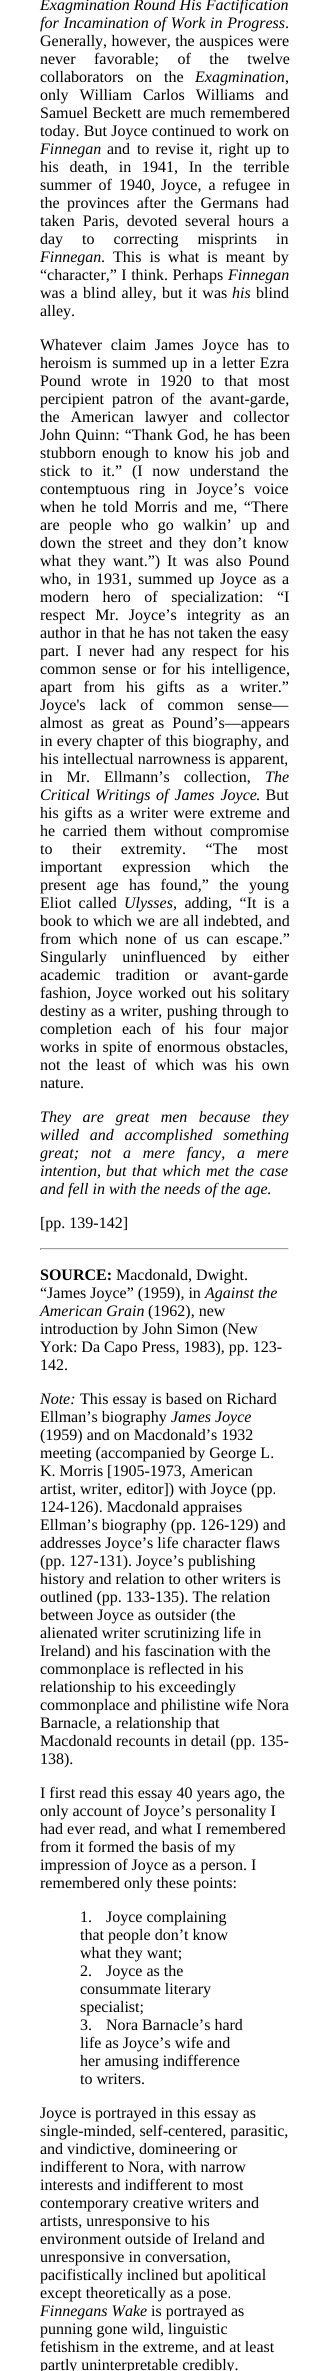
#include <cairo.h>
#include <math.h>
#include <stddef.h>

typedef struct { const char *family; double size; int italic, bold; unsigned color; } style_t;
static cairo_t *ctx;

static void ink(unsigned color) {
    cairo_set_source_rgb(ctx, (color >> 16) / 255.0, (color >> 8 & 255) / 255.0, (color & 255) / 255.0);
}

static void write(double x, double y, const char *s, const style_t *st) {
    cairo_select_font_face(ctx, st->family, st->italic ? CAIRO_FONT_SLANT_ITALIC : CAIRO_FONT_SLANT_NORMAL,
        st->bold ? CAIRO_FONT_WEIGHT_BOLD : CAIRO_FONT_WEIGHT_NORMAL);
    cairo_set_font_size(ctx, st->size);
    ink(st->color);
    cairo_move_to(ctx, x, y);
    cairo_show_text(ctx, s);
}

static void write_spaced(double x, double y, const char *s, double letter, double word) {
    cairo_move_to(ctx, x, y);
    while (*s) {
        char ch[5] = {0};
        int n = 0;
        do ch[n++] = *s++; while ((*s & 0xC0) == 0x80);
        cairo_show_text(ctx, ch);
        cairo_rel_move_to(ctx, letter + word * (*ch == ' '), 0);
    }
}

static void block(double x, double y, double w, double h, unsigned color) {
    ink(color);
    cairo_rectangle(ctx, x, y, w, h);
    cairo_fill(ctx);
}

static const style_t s1 = {"Liberation Serif", 16, 1, 0, 0x000000};
static const style_t s2 = {"Liberation Serif", 16, 0, 0, 0x000000};
static const style_t s3 = {"Liberation Serif", 16, 0, 1, 0x000000};

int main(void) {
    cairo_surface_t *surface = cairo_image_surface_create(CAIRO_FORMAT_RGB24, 329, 2371);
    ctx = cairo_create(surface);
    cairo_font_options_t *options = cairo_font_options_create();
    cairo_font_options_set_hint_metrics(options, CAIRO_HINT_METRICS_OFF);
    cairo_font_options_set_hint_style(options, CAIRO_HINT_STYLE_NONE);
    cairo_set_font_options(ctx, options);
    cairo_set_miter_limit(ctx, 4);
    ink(0xffffff);
    cairo_paint(ctx);
    write(40, 10, "Exagmination Round His Factification", &s1);
    write_spaced(40, 28, "for Incamination of Work in Progress", 0, 0.75);
    write(285, 28, ".", &s2);
    write_spaced(40, 46, "Generally, however, the auspices were", 0, 0.5);
    write_spaced(40, 64, "never favorable; of the twelve", 0, 14.5);
    write(40, 82, "collaborators", &s2);
    write_spaced(136, 82, "on the", 0, 8);
    write(195, 82, "Exagmination", &s1);
    write(285, 82, ",", &s2);
    write_spaced(40, 100, "only William Carlos Williams and", 0, 7);
    write_spaced(40, 118, "Samuel Beckett are much remembered", 0, 0.5);
    write_spaced(40, 136, "today. But Joyce continued to work on", 0, 0.25);
    write(40, 154, "Finnegan", &s1);
    write(107, 154, "and", &s2);
    write_spaced(137, 154, "to revise it, right up to", 0, 2);
    write_spaced(40, 172, "his death, in 1941, In the terrible", 0, 6.75);
    write_spaced(40, 190, "summer of 1940,", 0, 3);
    write_spaced(161, 190, "Joyce, a refugee in", 0, 3);
    write_spaced(40, 208, "the provinces after the Germans had", 0, 3.5);
    write_spaced(40, 226, "taken Paris, devoted", 0, 4);
    write_spaced(185, 226, "several hours a", 0, 4);
    write_spaced(40, 244, "day to correcting misprints in", 0, 15);
    write(40, 262, "Finnegan", &s1);
    cairo_select_font_face(ctx, "Liberation Serif", CAIRO_FONT_SLANT_NORMAL, CAIRO_FONT_WEIGHT_NORMAL);
    write_spaced(101, 262, ". This is what", 0, 4);
    write_spaced(207, 262, "is meant by", 0, 4);
    write_spaced(40, 280, "“character,” I think. Perhaps", 0, 0.5);
    write(228, 280, "Finnegan", &s1);
    cairo_select_font_face(ctx, "Liberation Serif", CAIRO_FONT_SLANT_NORMAL, CAIRO_FONT_WEIGHT_NORMAL);
    write_spaced(40, 298, "was a blind alley,", 0, 1.5);
    write_spaced(162, 298, "but it was", 0, 1.5);
    write(232, 298, "his", &s1);
    write(256, 298, "blind", &s2);
    write(40, 316, "alley.", &s2);
    write_spaced(40, 350, "Whatever claim James Joyce has", 0, 4.5);
    write(277, 350, "to", &s2);
    write_spaced(40, 368, "heroism is summed up in a letter Ezra", 0, 1);
    write_spaced(40, 386, "Pound wrote in 1920 to that most", 0, 6);
    write(40, 404, "percipient", &s2);
    write_spaced(112, 404, "patron of the avant-garde,", 0, 4);
    write_spaced(40, 422, "the American lawyer and collector", 0, 7);
    write_spaced(40, 440, "John Quinn: “Thank", 0, 1);
    write_spaced(177, 440, "God, he has been", 0, 1);
    write_spaced(40, 458, "stubborn enough to know his job and", 0, 2);
    write_spaced(40, 476, "stick to it.” (I now understand", 0, 5.75);
    write(269, 476, "the", &s2);
    write_spaced(40, 494, "contemptuous ring in Joyce’s voice", 0, 5.5);
    write_spaced(40, 512, "when he told Morris and me, “There", 0, 2.5);
    write(40, 530, "are", &s2);
    write_spaced(69, 530, "people who go walkin’ up and", 0, 5.25);
    write_spaced(40, 548, "down the street and they don’t know", 0, 2.5);
    write_spaced(40, 566, "what they want.”)", 0, 3);
    write_spaced(167, 566, "It was also Pound", 0, 3);
    write_spaced(40, 584, "who, in 1931, summed up Joyce as a", 0, 2);
    write_spaced(40, 602, "modern hero of specialization:", 0, 9.5);
    write(277, 602, "“I", &s2);
    write_spaced(40, 620, "respect Mr. Joyce’s integrity as an", 0, 6);
    write(40, 638, "author in that he has not taken the easy", &s2);
    write_spaced(40, 656, "part. I never had any respect for his", 0, 3.25);
    write_spaced(40, 674, "common sense or for his intelligence,", 0, 2);
    write_spaced(40, 692, "apart from his gifts as a writer.”", 0, 7.5);
    write_spaced(40, 710, "Joyce's lack of common sense—", 0, 10);
    write_spaced(40, 728, "almost as great", 0, 4);
    write_spaced(151, 728, "as Pound’s—appears", 0, 4);
    write_spaced(40, 746, "in every chapter of this biography, and", 0, 0.25);
    write(40, 764, "his intellectual narrowness is apparent,", &s2);
    write_spaced(40, 782, "in Mr. Ellmann’s collection,", 0, 10);
    write(265, 782, "The", &s1);
    write_spaced(40, 800, "Critical Writings", 0, 1.5);
    write_spaced(156, 800, "of James Joyce", 0, 2);
    cairo_select_font_face(ctx, "Liberation Serif", CAIRO_FONT_SLANT_NORMAL, CAIRO_FONT_WEIGHT_NORMAL);
    write_spaced(256, 800, ". But", 0, 1.5);
    write_spaced(40, 818, "his gifts as a writer were extreme and", 0, 1.5);
    write_spaced(40, 836, "he carried", 0, 3.5);
    write_spaced(114, 836, "them without compromise", 0, 3.5);
    write_spaced(40, 854, "to their extremity. “The most", 0, 15.5);
    write_spaced(40, 872, "important expression which", 0, 16);
    write(269, 872, "the", &s2);
    write_spaced(40, 890, "present age has found,” the young", 0, 6.25);
    write_spaced(40, 908, "Eliot called", 0, 3.5);
    write(124, 908, "Ulysses", &s1);
    cairo_select_font_face(ctx, "Liberation Serif", CAIRO_FONT_SLANT_NORMAL, CAIRO_FONT_WEIGHT_NORMAL);
    write_spaced(173, 908, ", adding, “It", 0, 3.5);
    write_spaced(264, 908, "is a", 0, 3.5);
    write_spaced(40, 926, "book to which we are all indebted, and", 0, 0.25);
    write_spaced(40, 944, "from which none of us can escape.”", 0, 3.5);
    write_spaced(40, 962, "Singularly uninfluenced by either", 0, 11.5);
    write_spaced(40, 980, "academic tradition or avant-garde", 0, 11);
    write(40, 998, "fashion,", &s2);
    write_spaced(96, 998, "Joyce worked out his solitary", 0, 1.5);
    write_spaced(40, 1016, "destiny as a writer, pushing through to", 0, 0.5);
    write(40, 1034, "completion", &s2);
    write_spaced(122, 1034, "each of his four major", 0, 6.25);
    write_spaced(40, 1052, "works in spite of enormous obstacles,", 0, 1.5);
    write_spaced(40, 1070, "not the least of", 0, 4);
    write_spaced(155, 1070, "which was his own", 0, 4);
    write(40, 1088, "nature.", &s2);
    cairo_select_font_face(ctx, "Liberation Serif", CAIRO_FONT_SLANT_ITALIC, CAIRO_FONT_WEIGHT_NORMAL);
    write_spaced(40, 1122, "They are great men because", 0, 7.5);
    write(262, 1122, "they", &s1);
    write_spaced(40, 1140, "willed and accomplished something", 0, 6.75);
    write_spaced(40, 1158, "great; not a mere fancy, a mere", 0, 7.75);
    write(40, 1176, "intention,", &s1);
    write_spaced(106, 1176, "but that which met the case", 0, 1.5);
    write(40, 1194, "and fell in with the needs of the age.", &s1);
    write(40, 1228, "[pp. 139-142]", &s2);
    block(40, 1248, 249, 1, 0x9f9f9f);
    block(288, 1248, 1, 2, 0xeeeeee);
    block(40, 1249, 249, 1, 0xeeeeee);
    block(40, 1248, 1, 2, 0x9f9f9f);
    write(40, 1280, "SOURCE:", &s3);
    write(116, 1280, "Macdonald, Dwight.", &s2);
    write(40, 1298, "“James Joyce” (1959), in", &s2);
    write(205, 1298, "Against the", &s1);
    write(40, 1316, "American Grain", &s1);
    write(148, 1316, "(1962), new", &s2);
    write(40, 1334, "introduction by John Simon (New", &s2);
    write(40, 1352, "York: Da Capo Press, 1983), pp. 123-", &s2);
    write(40, 1370, "142.", &s2);
    write(40, 1404, "Note:", &s1);
    write(80, 1404, "This essay is based on Richard", &s2);
    write(40, 1422, "Ellman’s biography", &s2);
    write(171, 1422, "James Joyce", &s1);
    write(40, 1440, "(1959) and on Macdonald’s 1932", &s2);
    write(40, 1458, "meeting (accompanied by George L.", &s2);
    write(40, 1476, "K. Morris [1905-1973, American", &s2);
    write(40, 1494, "artist, writer, editor]) with Joyce (pp.", &s2);
    write(40, 1512, "124-126). Macdonald appraises", &s2);
    write(40, 1530, "Ellman’s biography (pp. 126-129) and", &s2);
    write(40, 1548, "addresses Joyce’s life character flaws", &s2);
    write(40, 1566, "(pp. 127-131). Joyce’s publishing", &s2);
    write(40, 1584, "history and relation to other writers is", &s2);
    write(40, 1602, "outlined (pp. 133-135). The relation", &s2);
    write(40, 1620, "between Joyce as outsider (the", &s2);
    write(40, 1638, "alienated writer scrutinizing life in", &s2);
    write(40, 1656, "Ireland) and his fascination with the", &s2);
    write(40, 1674, "commonplace is reflected in his", &s2);
    write(40, 1692, "relationship to his exceedingly", &s2);
    write(40, 1710, "commonplace and philistine wife Nora", &s2);
    write(40, 1728, "Barnacle, a relationship that", &s2);
    write(40, 1746, "Macdonald recounts in detail (pp. 135-", &s2);
    write(40, 1764, "138).", &s2);
    write(40, 1798, "I first read this essay 40 years ago, the", &s2);
    write(40, 1816, "only account of Joyce’s personality I", &s2);
    write(40, 1834, "had ever read, and what I remembered", &s2);
    write(40, 1852, "from it formed the basis of my", &s2);
    write(40, 1870, "impression of Joyce as a person. I", &s2);
    write(40, 1888, "remembered only these points:", &s2);
    write(80, 1922, "1.", &s2);
    write(106, 1922, "Joyce complaining", &s2);
    write(80, 1940, "that people don’t know", &s2);
    write(80, 1958, "what they want;", &s2);
    write(80, 1976, "2.", &s2);
    write(106, 1976, "Joyce as the", &s2);
    write(80, 1994, "consummate literary", &s2);
    write(80, 2012, "specialist;", &s2);
    write(80, 2030, "3.", &s2);
    write(106, 2030, "Nora Barnacle’s hard", &s2);
    write(80, 2048, "life as Joyce’s wife and", &s2);
    write(80, 2066, "her amusing indifference", &s2);
    write(80, 2084, "to writers.", &s2);
    write(40, 2118, "Joyce is portrayed in this essay as", &s2);
    write(40, 2136, "single-minded, self-centered, parasitic,", &s2);
    write(40, 2154, "and vindictive, domineering or", &s2);
    write(40, 2172, "indifferent to Nora, with narrow", &s2);
    write(40, 2190, "interests and indifferent to most", &s2);
    write(40, 2208, "contemporary creative writers and", &s2);
    write(40, 2226, "artists, unresponsive to his", &s2);
    write(40, 2244, "environment outside of Ireland and", &s2);
    write(40, 2262, "unresponsive in conversation,", &s2);
    write(40, 2280, "pacifistically inclined but apolitical", &s2);
    write(40, 2298, "except theoretically as a pose.", &s2);
    write(40, 2316, "Finnegans Wake", &s1);
    write(151, 2316, "is portrayed as", &s2);
    write(40, 2334, "punning gone wild, linguistic", &s2);
    write(40, 2352, "fetishism in the extreme, and at least", &s2);
    write(40, 2370, "partly uninterpretable credibly.", &s2);
    cairo_surface_write_to_png(surface, "screenshot.png");
    cairo_font_options_destroy(options);
    cairo_destroy(ctx);
    cairo_surface_destroy(surface);
    return 0;
}
